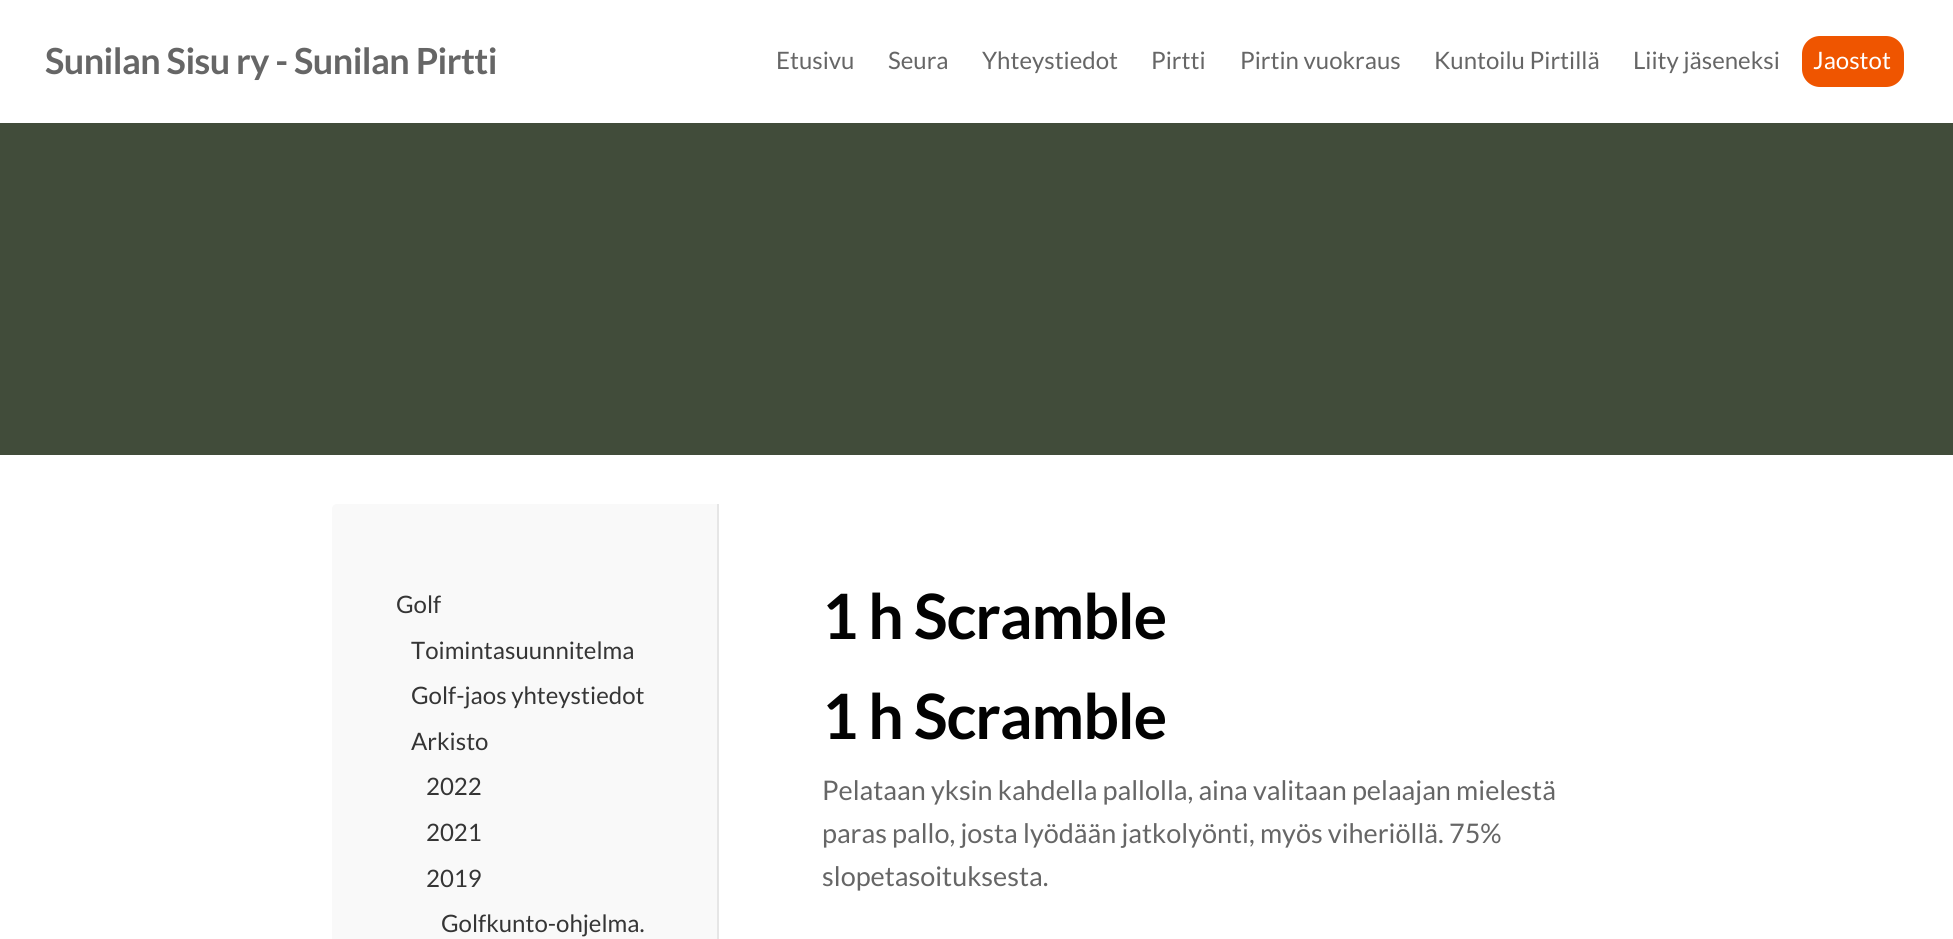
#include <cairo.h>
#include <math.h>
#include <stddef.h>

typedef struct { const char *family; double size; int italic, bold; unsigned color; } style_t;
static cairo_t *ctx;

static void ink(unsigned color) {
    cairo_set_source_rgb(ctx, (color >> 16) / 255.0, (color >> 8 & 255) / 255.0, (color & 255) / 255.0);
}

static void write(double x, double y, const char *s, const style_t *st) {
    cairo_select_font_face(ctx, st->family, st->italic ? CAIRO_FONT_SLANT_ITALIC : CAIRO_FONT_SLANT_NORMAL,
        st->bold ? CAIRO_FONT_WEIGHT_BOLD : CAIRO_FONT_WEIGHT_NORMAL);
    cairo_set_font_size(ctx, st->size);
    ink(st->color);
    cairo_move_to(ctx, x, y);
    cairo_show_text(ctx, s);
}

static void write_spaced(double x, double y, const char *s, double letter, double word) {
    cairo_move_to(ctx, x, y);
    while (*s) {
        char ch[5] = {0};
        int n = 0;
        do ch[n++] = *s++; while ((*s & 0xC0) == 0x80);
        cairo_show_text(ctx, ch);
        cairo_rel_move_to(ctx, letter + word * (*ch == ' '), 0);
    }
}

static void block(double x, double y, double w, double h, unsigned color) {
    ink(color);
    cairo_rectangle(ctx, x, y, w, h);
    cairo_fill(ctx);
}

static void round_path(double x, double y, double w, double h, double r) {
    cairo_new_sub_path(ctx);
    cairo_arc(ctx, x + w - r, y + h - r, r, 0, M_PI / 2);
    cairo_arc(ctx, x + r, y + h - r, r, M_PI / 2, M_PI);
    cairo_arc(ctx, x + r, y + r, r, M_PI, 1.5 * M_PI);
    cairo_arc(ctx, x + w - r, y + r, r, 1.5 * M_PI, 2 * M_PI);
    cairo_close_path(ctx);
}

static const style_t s1 = {"Lato", 24, 0, 0, 0x666666};
static const style_t s2 = {"Lato", 24, 0, 0, 0xffffff};
static const style_t s3 = {"Lato", 24, 0, 0, 0x353535};
static const style_t s4 = {"Lato", 27, 0, 0, 0x666666};

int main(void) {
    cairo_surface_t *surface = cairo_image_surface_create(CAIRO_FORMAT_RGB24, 1953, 939);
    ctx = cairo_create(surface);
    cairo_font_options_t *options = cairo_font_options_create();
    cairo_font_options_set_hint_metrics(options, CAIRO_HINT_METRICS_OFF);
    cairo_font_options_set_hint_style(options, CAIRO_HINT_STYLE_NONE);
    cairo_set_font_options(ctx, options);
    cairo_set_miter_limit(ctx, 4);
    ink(0xffffff);
    cairo_paint(ctx);
    cairo_select_font_face(ctx, "Lato", CAIRO_FONT_SLANT_NORMAL, CAIRO_FONT_WEIGHT_BOLD);
    cairo_set_font_size(ctx, 36);
    ink(0x666666);
    write_spaced(45, 74, "Sunilan Sisu ry - Sunilan Pirtti", -0.55, 0);
    write(776, 69, "Etusivu", &s1);
    write(888, 69, "Seura", &s1);
    write(982, 69, "Yhteystiedot", &s1);
    write(1151, 69, "Pirtti", &s1);
    write(1240, 69, "Pirtin vuokraus", &s1);
    write(1434, 69, "Kuntoilu Pirtillä", &s1);
    write(1633, 69, "Liity jäseneksi", &s1);
    ink(0xef5500);
    round_path(1802, 36, 102, 51, 18);
    cairo_fill(ctx);
    write(1813, 69, "Jaostot", &s2);
    block(0, 123, 1953, 332, 0x414c3a);
    ink(0xf9f9f9);
    cairo_new_path(ctx);
    cairo_move_to(ctx, 337, 504);
    cairo_line_to(ctx, 719, 504);
    cairo_line_to(ctx, 719, 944);
    cairo_line_to(ctx, 332, 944);
    cairo_line_to(ctx, 332, 509);
    cairo_curve_to(ctx, 332, 506, 334, 504, 337, 504);
    cairo_close_path(ctx);
    cairo_fill(ctx);
    block(717, 504, 2, 435, 0xe6e6e6);
    write(396, 613, "Golf", &s3);
    write(411, 659, "Toimintasuunnitelma", &s3);
    write(411, 704, "Golf-jaos yhteystiedot", &s3);
    write(411, 750, "Arkisto", &s3);
    write(426, 795, "2022", &s3);
    write(426, 841, "2021", &s3);
    write(426, 887, "2019", &s3);
    write(441, 932, "Golfkunto-ohjelma.", &s3);
    cairo_select_font_face(ctx, "Lato", CAIRO_FONT_SLANT_NORMAL, CAIRO_FONT_WEIGHT_BOLD);
    cairo_set_font_size(ctx, 62.5);
    ink(0x020202);
    write_spaced(822, 639, "1 h Scramble", -1, 0);
    write_spaced(822, 739, "1 h Scramble", -1, 0);
    write(822, 800, "Pelataan yksin kahdella pallolla, aina valitaan pelaajan mielestä", &s4);
    write(822, 843, "paras pallo, josta lyödään jatkolyönti, myös viheriöllä. 75%", &s4);
    write(822, 886, "slopetasoituksesta.", &s4);
    cairo_surface_write_to_png(surface, "screenshot.png");
    cairo_font_options_destroy(options);
    cairo_destroy(ctx);
    cairo_surface_destroy(surface);
    return 0;
}
